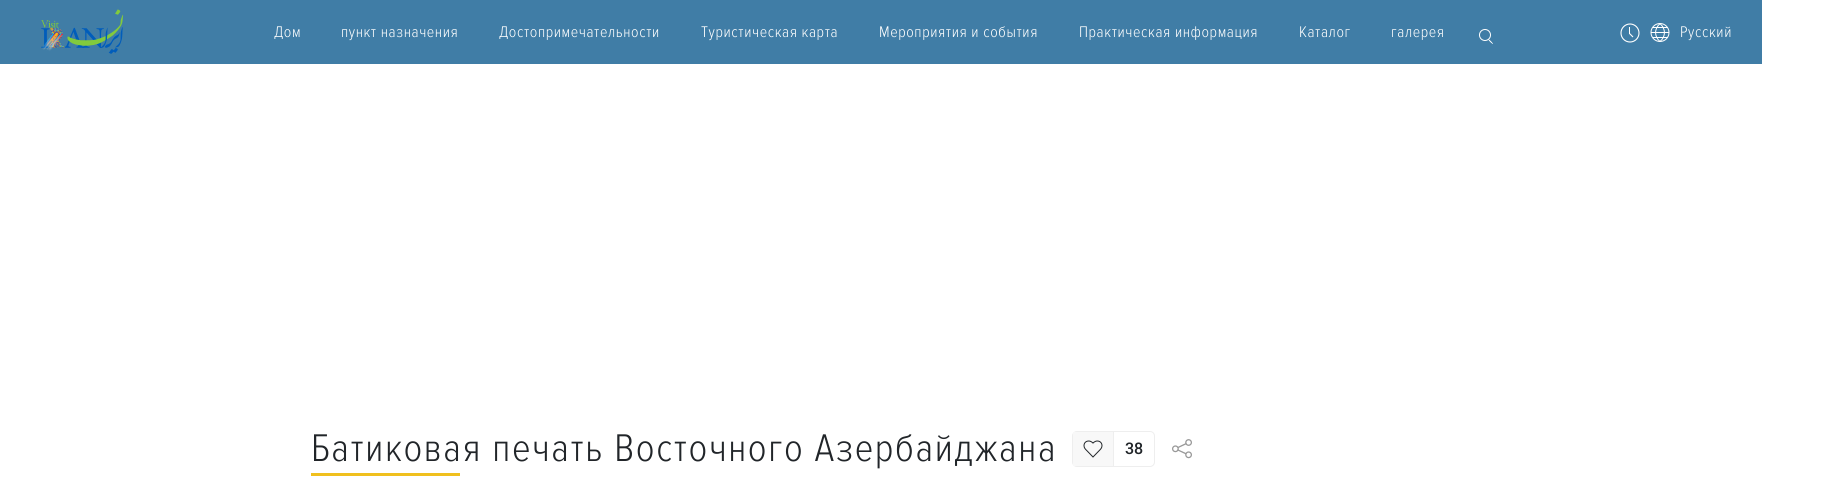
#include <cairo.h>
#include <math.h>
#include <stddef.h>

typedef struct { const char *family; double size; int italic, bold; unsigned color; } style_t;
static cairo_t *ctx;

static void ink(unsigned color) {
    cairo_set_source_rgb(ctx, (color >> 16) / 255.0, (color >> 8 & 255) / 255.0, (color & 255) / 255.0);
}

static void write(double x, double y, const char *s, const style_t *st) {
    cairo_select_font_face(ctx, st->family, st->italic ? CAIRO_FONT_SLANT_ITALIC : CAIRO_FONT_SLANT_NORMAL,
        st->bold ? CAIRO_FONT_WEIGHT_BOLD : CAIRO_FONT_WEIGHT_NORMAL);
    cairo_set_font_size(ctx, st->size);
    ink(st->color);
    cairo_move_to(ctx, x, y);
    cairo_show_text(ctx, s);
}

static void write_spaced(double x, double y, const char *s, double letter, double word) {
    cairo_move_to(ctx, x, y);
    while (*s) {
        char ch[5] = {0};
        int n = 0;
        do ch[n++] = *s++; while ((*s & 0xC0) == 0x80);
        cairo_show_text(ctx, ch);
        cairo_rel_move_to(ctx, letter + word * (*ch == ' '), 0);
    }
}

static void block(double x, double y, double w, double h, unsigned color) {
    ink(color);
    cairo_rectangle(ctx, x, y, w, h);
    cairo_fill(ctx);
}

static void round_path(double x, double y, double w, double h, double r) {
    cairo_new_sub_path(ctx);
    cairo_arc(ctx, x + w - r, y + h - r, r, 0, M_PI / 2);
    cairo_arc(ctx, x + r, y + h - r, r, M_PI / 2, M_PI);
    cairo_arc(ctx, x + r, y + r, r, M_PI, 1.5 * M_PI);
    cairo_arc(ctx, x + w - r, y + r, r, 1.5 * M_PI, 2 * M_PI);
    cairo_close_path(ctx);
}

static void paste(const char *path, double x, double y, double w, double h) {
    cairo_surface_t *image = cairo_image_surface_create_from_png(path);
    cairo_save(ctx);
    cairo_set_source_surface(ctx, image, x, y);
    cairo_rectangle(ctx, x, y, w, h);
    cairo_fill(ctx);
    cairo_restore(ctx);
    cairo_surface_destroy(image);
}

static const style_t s1 = {"Roboto Medium", 16, 0, 0, 0x212529};

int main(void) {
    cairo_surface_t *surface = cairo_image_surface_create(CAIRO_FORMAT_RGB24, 1822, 486);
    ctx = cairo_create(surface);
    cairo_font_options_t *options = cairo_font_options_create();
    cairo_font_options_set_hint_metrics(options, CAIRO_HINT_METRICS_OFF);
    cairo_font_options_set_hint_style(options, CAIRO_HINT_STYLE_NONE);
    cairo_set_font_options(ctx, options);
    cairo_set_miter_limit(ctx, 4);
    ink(0xffffff);
    cairo_paint(ctx);
    block(0, 0, 1762, 64, 0x407da6);
    paste("pic1.png", 41, 9, 83, 45);
    cairo_select_font_face(ctx, "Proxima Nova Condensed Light", CAIRO_FONT_SLANT_NORMAL, CAIRO_FONT_WEIGHT_NORMAL);
    cairo_set_font_size(ctx, 16);
    ink(0xffffff);
    write_spaced(274, 37, "Дом", 0.6, 0);
    write_spaced(341, 37, "пункт назначения", 0.6, 0);
    write_spaced(499, 37, "Достопримечательности", 0.6, 0);
    write_spaced(701, 37, "Туристическая карта", 0.6, 0);
    write_spaced(879, 37, "Мероприятия и события", 0.6, 0);
    write_spaced(1079, 37, "Практическая информация", 0.6, 0);
    write_spaced(1299, 37, "Каталог", 0.6, 0);
    write_spaced(1391, 37, "галерея", 0.6, 0);
    cairo_new_path(ctx);
    cairo_arc(ctx, 1485, 35, 5.5, 0, 2 * M_PI);
    cairo_set_line_width(ctx, 1);
    cairo_stroke(ctx);
    cairo_new_path(ctx);
    cairo_move_to(ctx, 1488, 39.5);
    cairo_line_to(ctx, 1488.5, 39);
    cairo_line_to(ctx, 1492, 42.5);
    cairo_line_to(ctx, 1491.5, 43);
    cairo_close_path(ctx);
    cairo_fill(ctx);
    cairo_new_path(ctx);
    cairo_move_to(ctx, 1489, 40.5);
    cairo_line_to(ctx, 1489.5, 40);
    cairo_line_to(ctx, 1493, 43.5);
    cairo_line_to(ctx, 1492.5, 44);
    cairo_close_path(ctx);
    cairo_fill(ctx);
    cairo_arc(ctx, 1630, 33, 9, 0, 2 * M_PI);
    cairo_set_line_width(ctx, 1.1);
    cairo_stroke(ctx);
    block(1629, 27, 1, 7, 0xffffff);
    cairo_new_path(ctx);
    cairo_move_to(ctx, 1633, 37);
    cairo_line_to(ctx, 1629.5, 33.5);
    cairo_stroke(ctx);
    paste("pic2.png", 1650, 23, 20, 19);
    write_spaced(1680, 37, "Русский", 0.6, 0);
    cairo_set_font_size(ctx, 40);
    ink(0x212529);
    write_spaced(311, 461, "Батиковая печать Восточного Азербайджана", 1.6, 0);
    block(311, 473, 149, 3, 0xf0c01e);
    round_path(1072.5, 431.5, 82, 35, 4.5);
    ink(0xeeeeee);
    cairo_set_line_width(ctx, 1);
    cairo_stroke(ctx);
    block(1073, 432, 40, 34, 0xf8f8f8);
    block(1113, 432, 1, 34, 0xeeeeee);
    paste("pic3.png", 1083, 440, 20, 18);
    write(1125, 454, "38", &s1);
    paste("pic4.png", 1172, 439, 20, 20);
    cairo_surface_write_to_png(surface, "screenshot.png");
    cairo_font_options_destroy(options);
    cairo_destroy(ctx);
    cairo_surface_destroy(surface);
    return 0;
}
